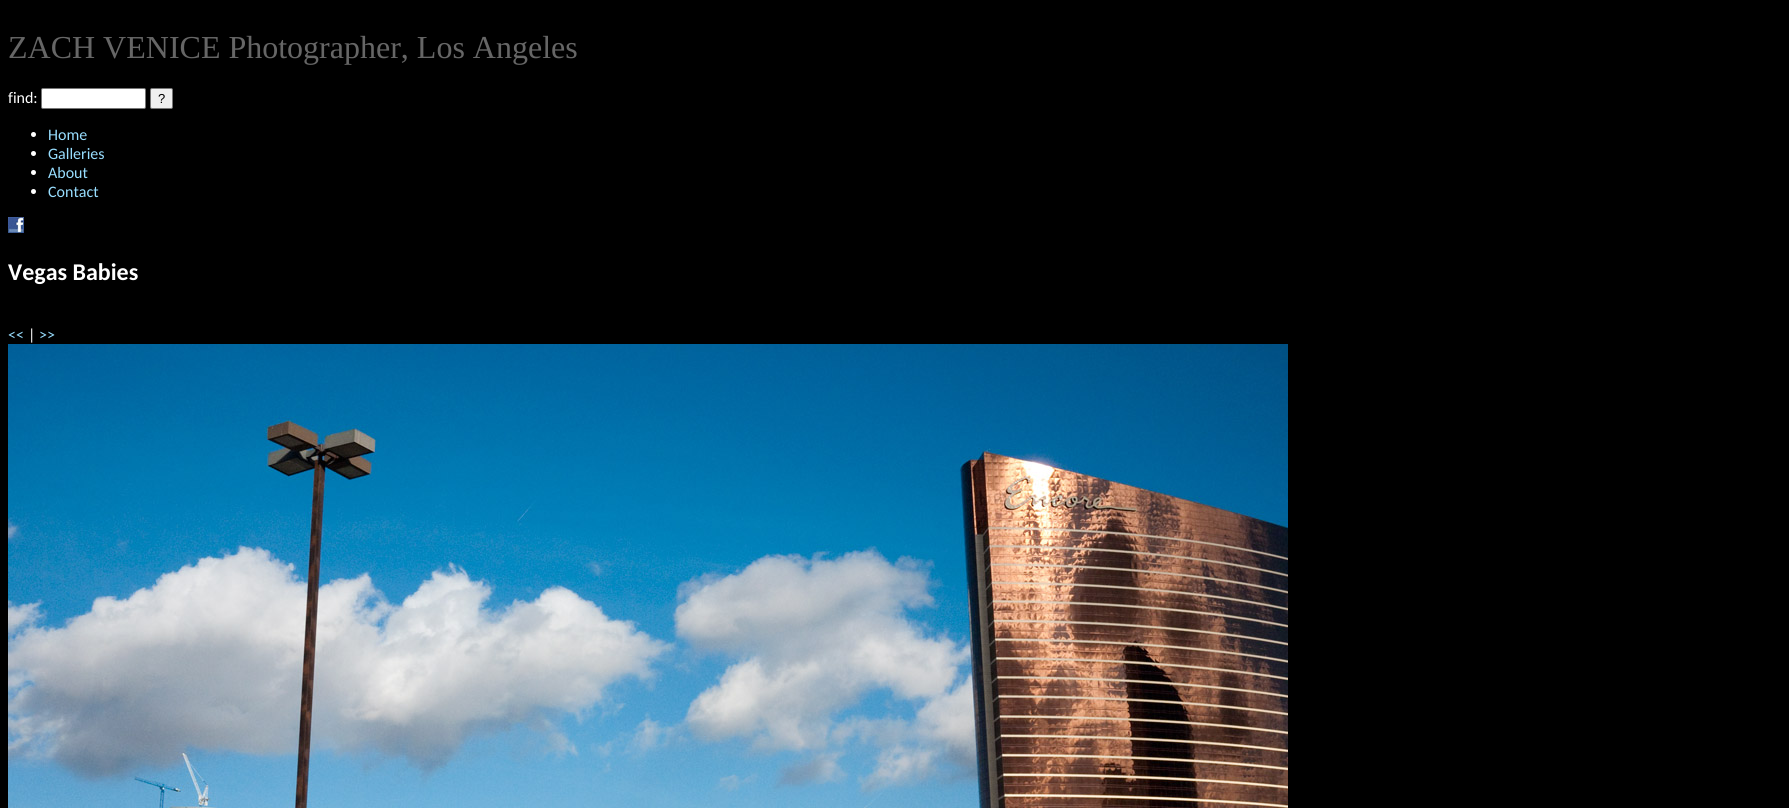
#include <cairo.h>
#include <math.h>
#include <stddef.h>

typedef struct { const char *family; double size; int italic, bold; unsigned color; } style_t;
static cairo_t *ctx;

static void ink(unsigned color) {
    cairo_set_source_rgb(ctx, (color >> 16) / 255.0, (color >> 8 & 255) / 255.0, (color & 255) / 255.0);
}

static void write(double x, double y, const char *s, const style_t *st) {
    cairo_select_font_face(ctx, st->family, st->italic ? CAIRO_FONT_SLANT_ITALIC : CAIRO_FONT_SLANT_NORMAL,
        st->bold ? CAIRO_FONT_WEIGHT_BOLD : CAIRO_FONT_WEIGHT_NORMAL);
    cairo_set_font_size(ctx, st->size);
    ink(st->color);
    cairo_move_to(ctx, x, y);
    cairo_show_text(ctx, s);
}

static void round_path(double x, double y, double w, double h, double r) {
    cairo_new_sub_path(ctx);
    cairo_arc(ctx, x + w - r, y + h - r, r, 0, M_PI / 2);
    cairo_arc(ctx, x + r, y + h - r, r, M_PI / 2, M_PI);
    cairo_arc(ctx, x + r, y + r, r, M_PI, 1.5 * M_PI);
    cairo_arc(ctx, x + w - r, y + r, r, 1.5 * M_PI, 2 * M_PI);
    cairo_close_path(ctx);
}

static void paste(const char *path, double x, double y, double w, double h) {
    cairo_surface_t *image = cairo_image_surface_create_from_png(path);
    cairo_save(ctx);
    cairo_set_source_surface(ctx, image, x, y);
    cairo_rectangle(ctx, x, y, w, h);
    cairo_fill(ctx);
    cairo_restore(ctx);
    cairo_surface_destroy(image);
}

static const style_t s1 = {"Liberation Serif", 32, 0, 0, 0x666666};
static const style_t s2 = {"Carlito", 16, 0, 0, 0xffffff};
static const style_t s3 = {"Liberation Sans", 13, 0, 0, 0x000000};
static const style_t s4 = {"Carlito", 16, 0, 0, 0x98deff};
static const style_t s5 = {"Carlito", 24, 0, 1, 0xffffff};

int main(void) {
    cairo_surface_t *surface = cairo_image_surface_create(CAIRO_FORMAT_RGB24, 1789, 808);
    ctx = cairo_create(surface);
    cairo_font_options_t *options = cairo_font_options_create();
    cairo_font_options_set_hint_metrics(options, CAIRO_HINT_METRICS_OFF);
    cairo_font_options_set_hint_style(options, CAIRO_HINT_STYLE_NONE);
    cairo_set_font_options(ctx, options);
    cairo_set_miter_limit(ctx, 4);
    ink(0x000000);
    cairo_paint(ctx);
    write(8, 58, "ZACH VENICE Photographer, Los Angeles", &s1);
    write(8, 103, "find:", &s2);
    round_path(41.5, 88.5, 104, 20, 1.5);
    cairo_fill_preserve(ctx);
    ink(0x767676);
    cairo_set_line_width(ctx, 1);
    cairo_stroke(ctx);
    ink(0xefefef);
    round_path(150.5, 88.5, 22, 20, 1.5);
    cairo_fill_preserve(ctx);
    ink(0x767676);
    cairo_stroke(ctx);
    write(158, 103, "?", &s3);
    ink(0xffffff);
    cairo_new_path(ctx);
    cairo_arc(ctx, 33.5, 134.5, 2.5, 0, 2 * M_PI);
    cairo_fill(ctx);
    write(48, 140, "Home", &s4);
    ink(0xffffff);
    cairo_new_path(ctx);
    cairo_arc(ctx, 33.5, 153.5, 2.5, 0, 2 * M_PI);
    cairo_fill(ctx);
    write(48, 159, "Galleries", &s4);
    ink(0xffffff);
    cairo_new_path(ctx);
    cairo_arc(ctx, 33.5, 172.5, 2.5, 0, 2 * M_PI);
    cairo_fill(ctx);
    write(48, 178, "About", &s4);
    ink(0xffffff);
    cairo_new_path(ctx);
    cairo_arc(ctx, 33.5, 191.5, 2.5, 0, 2 * M_PI);
    cairo_fill(ctx);
    write(48, 197, "Contact", &s4);
    paste("pic1.png", 8, 217, 16, 16);
    write(8, 280, "Vegas Babies", &s5);
    write(8, 340, "<<", &s4);
    write(28, 340, "|", &s2);
    write(39, 340, ">>", &s4);
    paste("pic2.png", 8, 344, 1280, 464);
    cairo_surface_write_to_png(surface, "screenshot.png");
    cairo_font_options_destroy(options);
    cairo_destroy(ctx);
    cairo_surface_destroy(surface);
    return 0;
}
